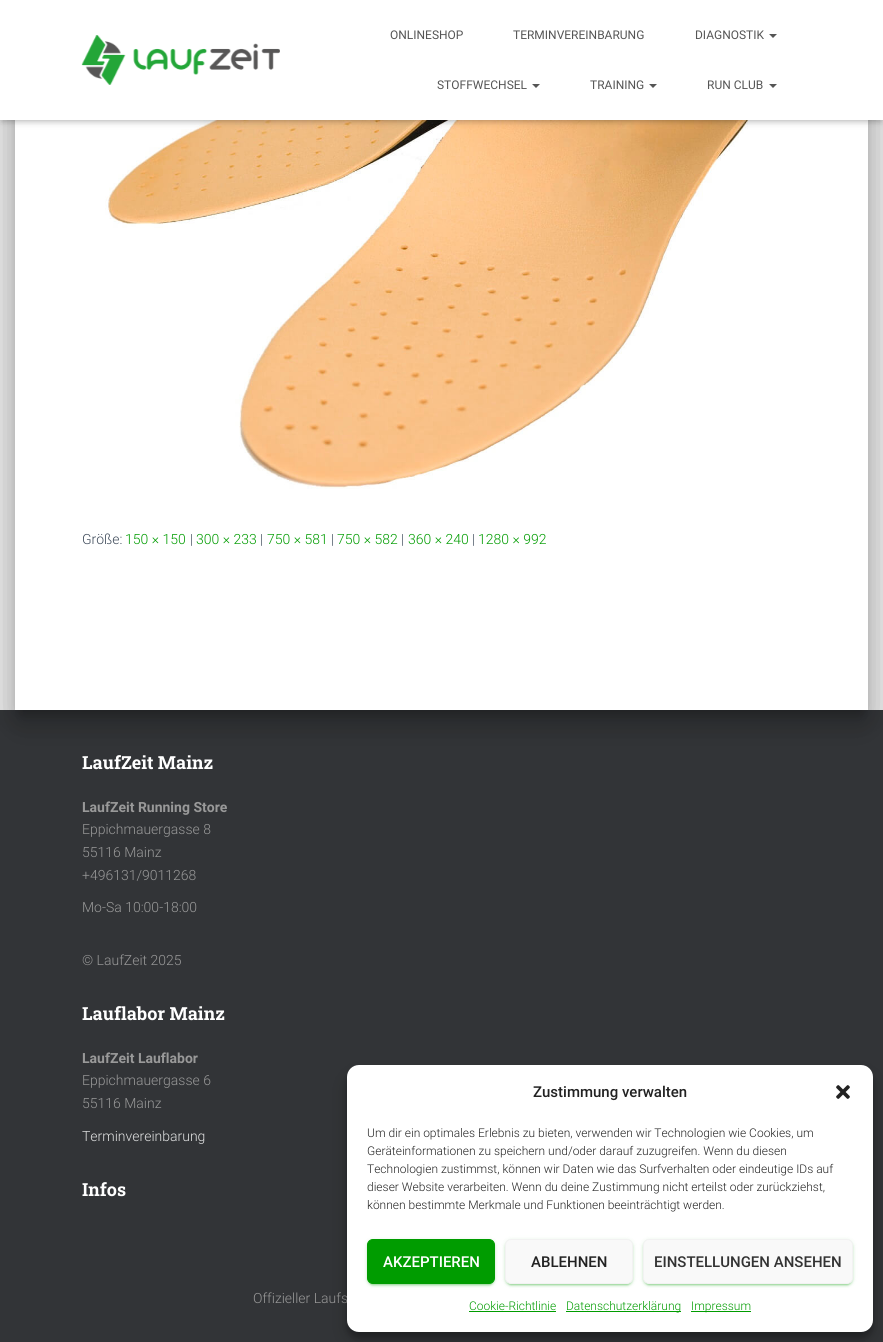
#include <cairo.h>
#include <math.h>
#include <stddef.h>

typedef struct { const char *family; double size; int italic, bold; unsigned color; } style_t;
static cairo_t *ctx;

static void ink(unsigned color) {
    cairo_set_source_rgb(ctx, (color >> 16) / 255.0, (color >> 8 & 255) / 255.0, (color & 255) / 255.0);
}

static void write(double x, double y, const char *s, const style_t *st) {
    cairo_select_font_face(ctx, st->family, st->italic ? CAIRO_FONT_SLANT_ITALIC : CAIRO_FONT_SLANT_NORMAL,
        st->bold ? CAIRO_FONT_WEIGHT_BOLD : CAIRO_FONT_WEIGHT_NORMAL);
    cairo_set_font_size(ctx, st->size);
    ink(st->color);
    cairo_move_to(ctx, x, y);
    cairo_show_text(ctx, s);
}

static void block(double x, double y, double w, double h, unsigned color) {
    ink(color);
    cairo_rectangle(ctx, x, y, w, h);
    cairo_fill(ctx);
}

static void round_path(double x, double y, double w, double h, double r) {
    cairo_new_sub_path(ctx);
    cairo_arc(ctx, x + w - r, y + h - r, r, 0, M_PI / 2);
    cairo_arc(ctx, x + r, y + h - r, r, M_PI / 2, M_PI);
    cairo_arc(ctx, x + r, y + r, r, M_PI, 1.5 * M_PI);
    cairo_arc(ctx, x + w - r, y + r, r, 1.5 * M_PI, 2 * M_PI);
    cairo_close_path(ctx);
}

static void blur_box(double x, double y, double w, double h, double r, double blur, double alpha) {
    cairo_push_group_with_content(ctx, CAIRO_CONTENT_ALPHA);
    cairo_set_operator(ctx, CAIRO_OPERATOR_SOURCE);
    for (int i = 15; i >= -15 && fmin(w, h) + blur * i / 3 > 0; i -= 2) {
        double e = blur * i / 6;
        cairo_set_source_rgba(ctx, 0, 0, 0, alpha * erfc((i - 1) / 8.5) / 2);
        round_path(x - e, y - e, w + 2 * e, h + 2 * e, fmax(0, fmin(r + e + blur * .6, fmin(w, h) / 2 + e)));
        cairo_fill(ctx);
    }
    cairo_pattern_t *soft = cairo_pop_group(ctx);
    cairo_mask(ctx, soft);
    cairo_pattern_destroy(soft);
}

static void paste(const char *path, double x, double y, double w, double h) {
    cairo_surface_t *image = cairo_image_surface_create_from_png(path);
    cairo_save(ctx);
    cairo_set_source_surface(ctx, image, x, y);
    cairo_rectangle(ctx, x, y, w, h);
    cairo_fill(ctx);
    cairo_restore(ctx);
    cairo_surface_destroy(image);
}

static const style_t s1 = {"Roboto", 12, 0, 0, 0x555555};
static const style_t s2 = {"Roboto Light", 14, 0, 0, 0x3c4858};
static const style_t s3 = {"Roboto Light", 14, 0, 0, 0x009c00};
static const style_t s4 = {"Roboto Slab", 18, 0, 1, 0xffffff};
static const style_t s5 = {"Roboto", 14, 0, 1, 0x999999};
static const style_t s6 = {"Roboto Light", 14, 0, 0, 0x999999};
static const style_t s7 = {"Roboto Light", 14, 0, 0, 0xe2e3e3};
static const style_t s8 = {"Roboto Medium", 15, 0, 0, 0x222222};
static const style_t s9 = {"Roboto Light", 12, 0, 0, 0x222222};
static const style_t s10 = {"Roboto Medium", 15, 0, 0, 0xffffff};
static const style_t s11 = {"Roboto Medium", 15, 0, 0, 0x333333};
static const style_t s12 = {"Roboto Light", 12, 0, 0, 0x009c00};

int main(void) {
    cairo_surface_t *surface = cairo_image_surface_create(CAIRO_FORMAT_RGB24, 883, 1342);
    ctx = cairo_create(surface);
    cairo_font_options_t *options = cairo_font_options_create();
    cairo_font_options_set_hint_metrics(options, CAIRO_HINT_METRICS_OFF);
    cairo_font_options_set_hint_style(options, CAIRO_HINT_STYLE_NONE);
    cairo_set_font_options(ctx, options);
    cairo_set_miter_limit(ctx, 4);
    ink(0xe5e5e5);
    cairo_paint(ctx);
    block(0, 710, 883, 632, 0x323437);
    ink(0x000000);
    blur_box(20, -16, 843, 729, 1, 5, 0.2);
    blur_box(10, -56, 863, 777, 11, 15, 0.12);
    blur_box(13, -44, 857, 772, 8, 12, 0.14);
    block(15, 120, 853, 590, 0xffffff);
    paste("pic2.png", 105, 120, 670, 369);
    ink(0x000000);
    blur_box(2, 6, 879, 116, 0, 2.5, 0.1);
    blur_box(0, 1, 883, 120, 0, 5, 0.12);
    blur_box(6, 7, 871, 108, 0, 5, 0.42);
    block(0, 0, 883, 120, 0xffffff);
    paste("pic1.png", 81, 35, 199, 50);
    write(390, 39, "ONLINESHOP", &s1);
    write(513, 39, "TERMINVEREINBARUNG", &s1);
    write(695, 39, "DIAGNOSTIK", &s1);
    cairo_new_path(ctx);
    cairo_move_to(ctx, 769, 34);
    cairo_line_to(ctx, 777, 34);
    cairo_line_to(ctx, 773, 38);
    cairo_close_path(ctx);
    cairo_fill(ctx);
    write(437, 89, "STOFFWECHSEL", &s1);
    cairo_new_path(ctx);
    cairo_move_to(ctx, 532, 84);
    cairo_line_to(ctx, 540, 84);
    cairo_line_to(ctx, 536, 88);
    cairo_close_path(ctx);
    cairo_fill(ctx);
    write(590, 89, "TRAINING", &s1);
    cairo_new_path(ctx);
    cairo_move_to(ctx, 649, 84);
    cairo_line_to(ctx, 657, 84);
    cairo_line_to(ctx, 653, 88);
    cairo_close_path(ctx);
    cairo_fill(ctx);
    write(707, 89, "RUN CLUB", &s1);
    cairo_new_path(ctx);
    cairo_move_to(ctx, 769, 84);
    cairo_line_to(ctx, 777, 84);
    cairo_line_to(ctx, 773, 88);
    cairo_close_path(ctx);
    cairo_fill(ctx);
    write(82, 544, "Größe:", &s2);
    write(125, 544, "150 × 150", &s3);
    write(190, 544, "|", &s2);
    write(196, 544, "300 × 233", &s3);
    write(260, 544, "|", &s2);
    write(267, 544, "750 × 581", &s3);
    write(331, 544, "|", &s2);
    write(337, 544, "750 × 582", &s3);
    write(401, 544, "|", &s2);
    write(408, 544, "360 × 240", &s3);
    write(472, 544, "|", &s2);
    write(478, 544, "1280 × 992", &s3);
    write(82, 769, "LaufZeit Mainz", &s4);
    write(82, 812, "LaufZeit Running Store", &s5);
    write(82, 834, "Eppichmauergasse 8", &s6);
    write(82, 857, "55116 Mainz", &s6);
    write(82, 880, "+496131/9011268", &s6);
    write(82, 912, "Mo-Sa 10:00-18:00", &s6);
    write(82, 965, "© LaufZeit 2025", &s6);
    write(82, 1020, "Lauflabor Mainz", &s4);
    write(82, 1063, "LaufZeit Lauflabor", &s5);
    write(82, 1085, "Eppichmauergasse 6", &s6);
    write(82, 1108, "55116 Mainz", &s6);
    write(82, 1141, "Terminvereinbarung", &s7);
    write(82, 1196, "Infos", &s4);
    write(253, 1303, "Offizieller Laufs", &s6);
    ink(0x000000);
    blur_box(347, 1071, 526, 267, 12, 3, 0.23);
    blur_box(347, 1075, 526, 267, 12, 10, 0.19);
    ink(0xffffff);
    round_path(347, 1065, 526, 267, 12);
    cairo_fill(ctx);
    write(533, 1097, "Zustimmung verwalten", &s8);
    paste("pic3.png", 836, 1085, 14, 14);
    write(367, 1137, "Um dir ein optimales Erlebnis zu bieten, verwenden wir Technologien wie Cookies, um", &s9);
    write(367, 1155, "Geräteinformationen zu speichern und/oder darauf zuzugreifen. Wenn du diesen", &s9);
    write(367, 1173, "Technologien zustimmst, können wir Daten wie das Surfverhalten oder eindeutige IDs auf", &s9);
    write(367, 1191, "dieser Website verarbeiten. Wenn du deine Zustimmung nicht erteilst oder zurückziehst,", &s9);
    write(367, 1209, "können bestimmte Merkmale und Funktionen beeinträchtigt werden.", &s9);
    ink(0x009c00);
    blur_box(367, 1240, 128, 45, 6, 2.5, 0.12);
    blur_box(369, 1244, 124, 41, 4, 0.5, 0.2);
    blur_box(367, 1241, 128, 45, 6, 1, 0.14);
    ink(0x009c00);
    round_path(367.5, 1239.5, 127, 44, 5.5);
    cairo_fill_preserve(ctx);
    cairo_set_line_width(ctx, 1);
    cairo_stroke(ctx);
    write(383, 1267, "AKZEPTIEREN", &s10);
    ink(0x009c00);
    blur_box(505, 1240, 128, 45, 6, 2.5, 0.12);
    blur_box(507, 1244, 124, 41, 4, 0.5, 0.2);
    blur_box(505, 1241, 128, 45, 6, 1, 0.14);
    ink(0xf9f9f9);
    round_path(505.5, 1239.5, 127, 44, 5.5);
    cairo_fill_preserve(ctx);
    ink(0xf2f2f2);
    cairo_stroke(ctx);
    write(531, 1267, "ABLEHNEN", &s8);
    ink(0x009c00);
    blur_box(643, 1240, 210, 45, 6, 2.5, 0.12);
    blur_box(645, 1244, 206, 41, 4, 0.5, 0.2);
    blur_box(643, 1241, 210, 45, 6, 1, 0.14);
    ink(0xf9f9f9);
    round_path(643.5, 1239.5, 209, 44, 5.5);
    cairo_fill_preserve(ctx);
    ink(0xf2f2f2);
    cairo_stroke(ctx);
    write(654, 1267, "EINSTELLUNGEN ANSEHEN", &s11);
    write(469, 1310, "Cookie-Richtlinie", &s12);
    block(469, 1311, 87, 1, 0x009c00);
    block(566, 1311, 115, 1, 0x009c00);
    write(566, 1310, "Datenschutzerklärung", &s12);
    block(691, 1311, 60, 1, 0x009c00);
    write(691, 1310, "Impressum", &s12);
    cairo_surface_write_to_png(surface, "screenshot.png");
    cairo_font_options_destroy(options);
    cairo_destroy(ctx);
    cairo_surface_destroy(surface);
    return 0;
}
